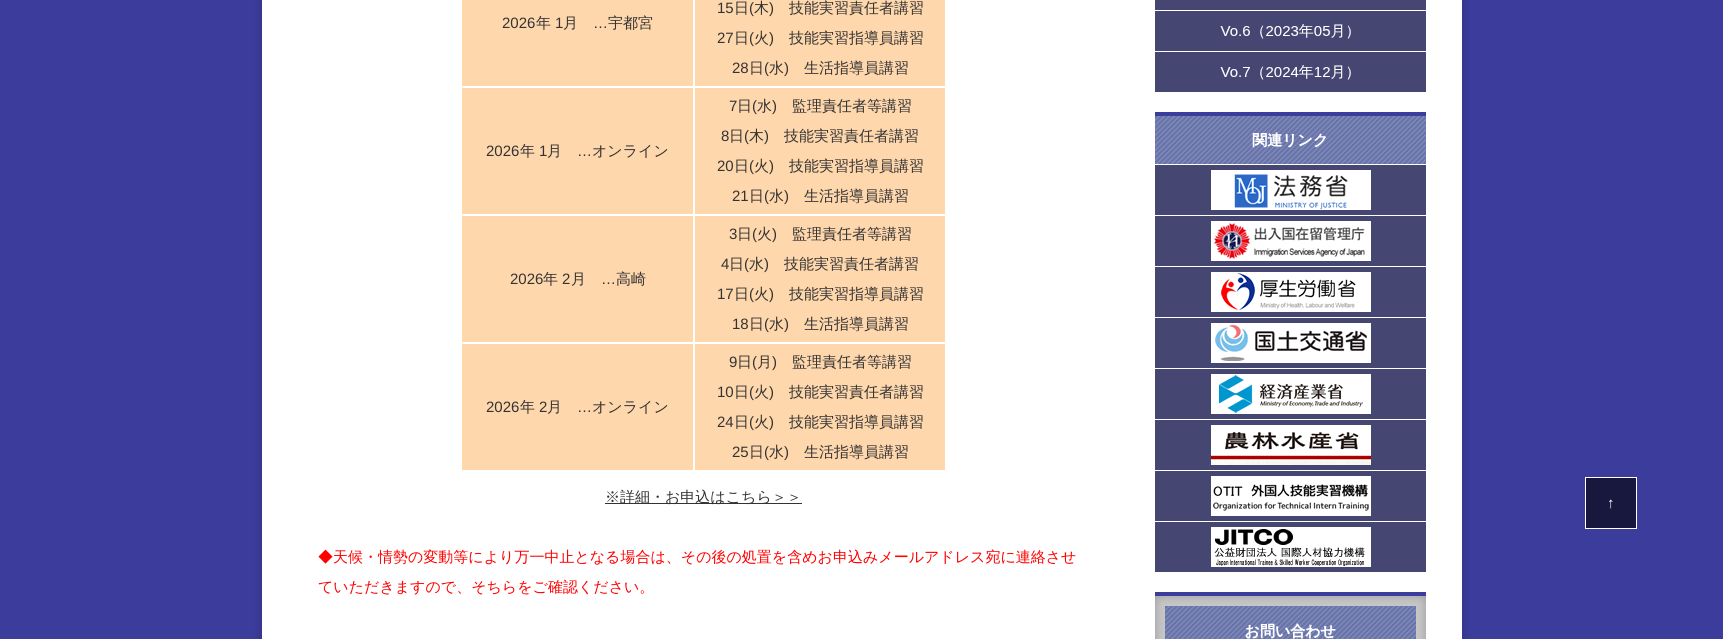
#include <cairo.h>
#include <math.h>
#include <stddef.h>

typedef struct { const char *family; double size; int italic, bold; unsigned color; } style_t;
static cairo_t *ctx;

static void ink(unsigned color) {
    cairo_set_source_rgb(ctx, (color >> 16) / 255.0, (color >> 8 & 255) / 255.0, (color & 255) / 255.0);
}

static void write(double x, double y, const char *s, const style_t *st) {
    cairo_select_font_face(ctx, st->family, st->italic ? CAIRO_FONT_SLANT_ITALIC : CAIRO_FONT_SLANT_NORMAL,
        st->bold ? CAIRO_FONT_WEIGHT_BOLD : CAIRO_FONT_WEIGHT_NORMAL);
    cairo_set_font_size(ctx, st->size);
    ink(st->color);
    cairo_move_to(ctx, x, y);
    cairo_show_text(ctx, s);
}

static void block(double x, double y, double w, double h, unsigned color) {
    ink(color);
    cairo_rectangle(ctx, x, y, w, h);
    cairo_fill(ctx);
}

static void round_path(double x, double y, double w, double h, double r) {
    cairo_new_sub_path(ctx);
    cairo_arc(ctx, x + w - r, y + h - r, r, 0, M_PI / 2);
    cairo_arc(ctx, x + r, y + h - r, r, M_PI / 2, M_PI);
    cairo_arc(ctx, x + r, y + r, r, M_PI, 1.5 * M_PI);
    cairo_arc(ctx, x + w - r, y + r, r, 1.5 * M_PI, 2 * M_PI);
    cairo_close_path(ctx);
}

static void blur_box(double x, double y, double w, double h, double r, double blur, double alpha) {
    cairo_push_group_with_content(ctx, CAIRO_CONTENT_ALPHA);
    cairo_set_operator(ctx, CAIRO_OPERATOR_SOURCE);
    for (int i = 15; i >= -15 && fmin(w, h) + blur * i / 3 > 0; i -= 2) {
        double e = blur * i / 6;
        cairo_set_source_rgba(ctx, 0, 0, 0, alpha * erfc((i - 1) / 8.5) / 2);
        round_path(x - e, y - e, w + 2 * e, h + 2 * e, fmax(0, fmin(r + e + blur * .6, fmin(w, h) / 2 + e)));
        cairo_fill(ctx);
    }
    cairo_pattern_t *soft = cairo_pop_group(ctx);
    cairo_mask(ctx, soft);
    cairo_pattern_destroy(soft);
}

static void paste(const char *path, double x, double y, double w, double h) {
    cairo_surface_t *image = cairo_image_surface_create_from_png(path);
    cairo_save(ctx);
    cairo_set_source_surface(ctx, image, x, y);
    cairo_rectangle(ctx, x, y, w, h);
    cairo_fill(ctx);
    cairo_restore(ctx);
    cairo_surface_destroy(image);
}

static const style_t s1 = {"Liberation Sans", 15, 0, 0, 0x333333};
static const style_t s2 = {"WenQuanYi Zen Hei Medium", 15, 0, 0, 0x333333};
static const style_t s3 = {"WenQuanYi Zen Hei Medium", 15, 0, 0, 0xff0000};
static const style_t s4 = {"Liberation Sans", 15, 0, 0, 0xffffff};

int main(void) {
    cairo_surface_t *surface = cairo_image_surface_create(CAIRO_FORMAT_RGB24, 1723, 639);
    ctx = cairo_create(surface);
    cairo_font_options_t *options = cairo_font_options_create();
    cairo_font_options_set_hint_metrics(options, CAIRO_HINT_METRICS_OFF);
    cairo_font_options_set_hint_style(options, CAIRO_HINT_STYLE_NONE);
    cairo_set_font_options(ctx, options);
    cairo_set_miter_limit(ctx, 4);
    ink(0x3b3c9c);
    cairo_paint(ctx);
    ink(0x000000);
    blur_box(262, -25, 1200, 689, 10, 5, 0.2);
    block(262, 0, 1200, 639, 0xffffff);
    block(462, 0, 483, 470, 0xffd7ac);
    write(502, 28, "2026", &s1);
    write(536, 28, "年", &s2);
    write(555, 28, "1", &s1);
    write(563, 28, "月", &s2);
    write(593, 28, "…", &s1);
    write(608, 28, "宇都宮", &s2);
    block(693, 86, 254, 2, 0xffffff);
    block(693, 214, 254, 2, 0xffffff);
    block(693, 342, 254, 2, 0xffffff);
    block(693, 342, 2, 130, 0xffffff);
    block(460, 342, 235, 2, 0xffffff);
    block(693, 214, 2, 130, 0xffffff);
    block(460, 214, 235, 2, 0xffffff);
    block(693, 86, 2, 130, 0xffffff);
    block(460, 86, 235, 2, 0xffffff);
    block(693, 0, 2, 88, 0xffffff);
    write(717, 13, "15", &s1);
    write(734, 13, "日", &s2);
    write(749, 13, "(", &s1);
    write(754, 13, "木", &s2);
    write(769, 13, ")", &s1);
    write(789, 13, "技能実習責任者講習", &s2);
    write(717, 43, "27", &s1);
    write(734, 43, "日", &s2);
    write(749, 43, "(", &s1);
    write(754, 43, "火", &s2);
    write(769, 43, ")", &s1);
    write(789, 43, "技能実習指導員講習", &s2);
    write(732, 73, "28", &s1);
    write(749, 73, "日", &s2);
    write(764, 73, "(", &s1);
    write(769, 73, "水", &s2);
    write(784, 73, ")", &s1);
    write(804, 73, "生活指導員講習", &s2);
    write(486, 156, "2026", &s1);
    write(520, 156, "年", &s2);
    write(539, 156, "1", &s1);
    write(547, 156, "月", &s2);
    write(577, 156, "…", &s1);
    write(592, 156, "オンライン", &s2);
    write(729, 111, "7", &s1);
    write(737, 111, "日", &s2);
    write(752, 111, "(", &s1);
    write(757, 111, "水", &s2);
    write(772, 111, ")", &s1);
    write(792, 111, "監理責任者等講習", &s2);
    write(721, 141, "8", &s1);
    write(729, 141, "日", &s2);
    write(744, 141, "(", &s1);
    write(749, 141, "木", &s2);
    write(764, 141, ")", &s1);
    write(784, 141, "技能実習責任者講習", &s2);
    write(717, 171, "20", &s1);
    write(734, 171, "日", &s2);
    write(749, 171, "(", &s1);
    write(754, 171, "火", &s2);
    write(769, 171, ")", &s1);
    write(789, 171, "技能実習指導員講習", &s2);
    write(732, 201, "21", &s1);
    write(749, 201, "日", &s2);
    write(764, 201, "(", &s1);
    write(769, 201, "水", &s2);
    write(784, 201, ")", &s1);
    write(804, 201, "生活指導員講習", &s2);
    write(510, 284, "2026", &s1);
    write(543, 284, "年", &s2);
    write(562, 284, "2", &s1);
    write(571, 284, "月", &s2);
    write(601, 284, "…", &s1);
    write(616, 284, "高崎", &s2);
    write(729, 239, "3", &s1);
    write(737, 239, "日", &s2);
    write(752, 239, "(", &s1);
    write(757, 239, "火", &s2);
    write(772, 239, ")", &s1);
    write(792, 239, "監理責任者等講習", &s2);
    write(721, 269, "4", &s1);
    write(729, 269, "日", &s2);
    write(744, 269, "(", &s1);
    write(749, 269, "水", &s2);
    write(764, 269, ")", &s1);
    write(784, 269, "技能実習責任者講習", &s2);
    write(717, 299, "17", &s1);
    write(734, 299, "日", &s2);
    write(749, 299, "(", &s1);
    write(754, 299, "火", &s2);
    write(769, 299, ")", &s1);
    write(789, 299, "技能実習指導員講習", &s2);
    write(732, 329, "18", &s1);
    write(749, 329, "日", &s2);
    write(764, 329, "(", &s1);
    write(769, 329, "水", &s2);
    write(784, 329, ")", &s1);
    write(804, 329, "生活指導員講習", &s2);
    write(486, 412, "2026", &s1);
    write(520, 412, "年", &s2);
    write(539, 412, "2", &s1);
    write(547, 412, "月", &s2);
    write(577, 412, "…", &s1);
    write(592, 412, "オンライン", &s2);
    write(729, 367, "9", &s1);
    write(737, 367, "日", &s2);
    write(752, 367, "(", &s1);
    write(757, 367, "月", &s2);
    write(772, 367, ")", &s1);
    write(792, 367, "監理責任者等講習", &s2);
    write(717, 397, "10", &s1);
    write(734, 397, "日", &s2);
    write(749, 397, "(", &s1);
    write(754, 397, "火", &s2);
    write(769, 397, ")", &s1);
    write(789, 397, "技能実習責任者講習", &s2);
    write(717, 427, "24", &s1);
    write(734, 427, "日", &s2);
    write(749, 427, "(", &s1);
    write(754, 427, "火", &s2);
    write(769, 427, ")", &s1);
    write(789, 427, "技能実習指導員講習", &s2);
    write(732, 457, "25", &s1);
    write(749, 457, "日", &s2);
    write(764, 457, "(", &s1);
    write(769, 457, "水", &s2);
    write(784, 457, ")", &s1);
    write(804, 457, "生活指導員講習", &s2);
    block(605, 503, 197, 1, 0x333333);
    write(605, 502, "※詳細・お申込はこちら＞＞", &s2);
    write(318, 562, "◆天候・情勢の変動等により万一中止となる場合は、その後の処置を含めお申込みメールアドレス宛に連絡させ", &s3);
    write(318, 592, "ていただきますので、そちらをご確認ください。", &s3);
    paste("pic1.png", 1155, 0, 271, 639);
    ink(0x18183e);
    cairo_rectangle(ctx, 1585.5, 477.5, 51, 51);
    cairo_fill_preserve(ctx);
    ink(0xffffff);
    cairo_set_line_width(ctx, 1);
    cairo_stroke(ctx);
    write(1607, 508, "↑", &s4);
    cairo_surface_write_to_png(surface, "screenshot.png");
    cairo_font_options_destroy(options);
    cairo_destroy(ctx);
    cairo_surface_destroy(surface);
    return 0;
}
